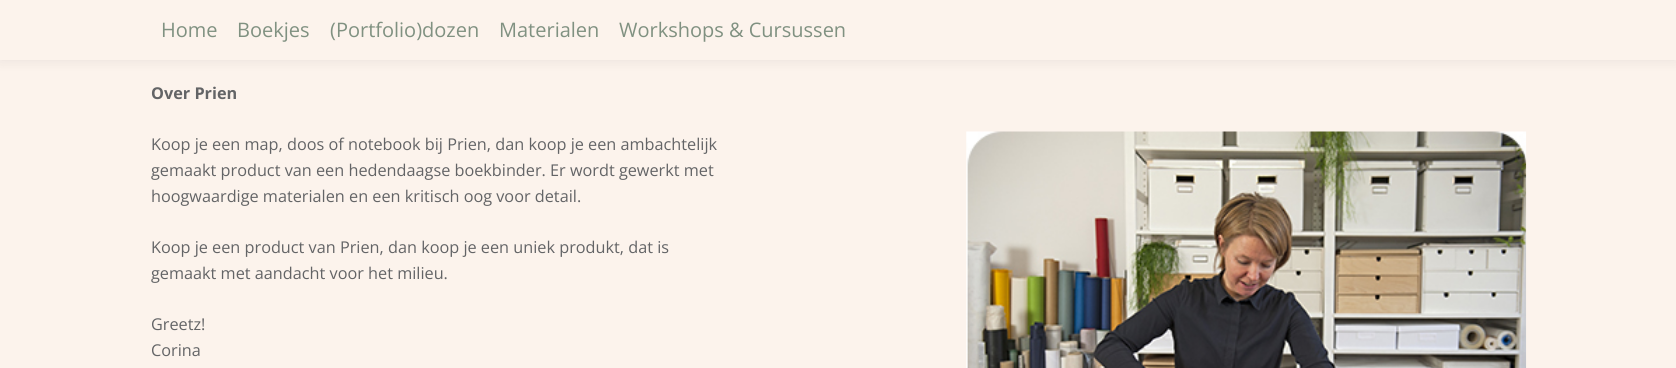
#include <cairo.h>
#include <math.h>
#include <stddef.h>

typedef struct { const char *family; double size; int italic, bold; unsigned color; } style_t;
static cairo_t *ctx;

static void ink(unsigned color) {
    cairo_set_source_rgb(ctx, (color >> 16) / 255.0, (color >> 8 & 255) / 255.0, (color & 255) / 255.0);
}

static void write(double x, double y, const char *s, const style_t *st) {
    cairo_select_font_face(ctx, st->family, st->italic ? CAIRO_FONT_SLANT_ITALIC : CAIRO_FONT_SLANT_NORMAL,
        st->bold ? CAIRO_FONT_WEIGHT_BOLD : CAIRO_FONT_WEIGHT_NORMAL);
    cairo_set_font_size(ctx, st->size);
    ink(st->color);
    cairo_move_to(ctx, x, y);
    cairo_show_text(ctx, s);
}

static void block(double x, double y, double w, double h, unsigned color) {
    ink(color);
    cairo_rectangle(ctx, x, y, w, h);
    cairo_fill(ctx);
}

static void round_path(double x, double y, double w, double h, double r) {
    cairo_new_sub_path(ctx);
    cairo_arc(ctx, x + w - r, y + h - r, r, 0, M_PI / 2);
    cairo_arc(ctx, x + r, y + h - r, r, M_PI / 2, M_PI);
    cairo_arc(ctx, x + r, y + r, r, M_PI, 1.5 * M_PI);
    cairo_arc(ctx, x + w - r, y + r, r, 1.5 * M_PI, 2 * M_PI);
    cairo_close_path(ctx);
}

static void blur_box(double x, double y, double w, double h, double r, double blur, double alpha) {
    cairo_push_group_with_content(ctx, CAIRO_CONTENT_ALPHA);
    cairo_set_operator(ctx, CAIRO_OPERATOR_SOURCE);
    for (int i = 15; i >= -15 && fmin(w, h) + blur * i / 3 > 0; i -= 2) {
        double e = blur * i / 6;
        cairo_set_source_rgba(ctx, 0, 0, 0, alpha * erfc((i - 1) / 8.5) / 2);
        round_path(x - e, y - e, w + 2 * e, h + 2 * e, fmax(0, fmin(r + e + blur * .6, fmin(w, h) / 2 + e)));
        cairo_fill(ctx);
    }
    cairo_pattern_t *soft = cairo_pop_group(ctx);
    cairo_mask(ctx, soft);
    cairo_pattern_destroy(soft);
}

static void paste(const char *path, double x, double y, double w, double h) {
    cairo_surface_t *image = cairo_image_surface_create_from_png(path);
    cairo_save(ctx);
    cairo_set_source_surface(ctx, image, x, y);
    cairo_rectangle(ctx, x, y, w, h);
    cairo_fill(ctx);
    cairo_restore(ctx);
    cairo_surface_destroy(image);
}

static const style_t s1 = {"Open Sans", 20, 0, 0, 0x809181};
static const style_t s2 = {"Open Sans", 16.25, 0, 1, 0x636466};
static const style_t s3 = {"Open Sans", 16.25, 0, 0, 0x636466};

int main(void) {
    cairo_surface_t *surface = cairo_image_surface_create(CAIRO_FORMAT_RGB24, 1676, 368);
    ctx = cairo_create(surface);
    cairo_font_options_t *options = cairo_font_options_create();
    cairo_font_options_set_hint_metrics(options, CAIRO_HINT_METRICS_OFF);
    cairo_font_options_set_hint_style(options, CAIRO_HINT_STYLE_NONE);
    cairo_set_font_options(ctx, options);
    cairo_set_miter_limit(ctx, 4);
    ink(0xfcf3ec);
    cairo_paint(ctx);
    ink(0x000000);
    blur_box(0, 0, 1676, 60, 0, 7.5, 0.08);
    block(0, 0, 1676, 60, 0xfcf3ec);
    write(161, 37, "Home", &s1);
    write(237, 37, "Boekjes", &s1);
    write(330, 37, "(Portfolio)dozen", &s1);
    write(499, 37, "Materialen", &s1);
    write(619, 37, "Workshops & Cursussen", &s1);
    write(151, 99, "Over Prien", &s2);
    write(151, 150, "Koop je een map, doos of notebook bij Prien, dan koop je een ambachtelijk", &s3);
    paste("pic1.png", 966, 131, 561, 237);
    write(151, 176, "gemaakt product van een hedendaagse boekbinder. Er wordt gewerkt met", &s3);
    write(151, 202, "hoogwaardige materialen en een kritisch oog voor detail.", &s3);
    write(151, 253, "Koop je een product van Prien, dan koop je een uniek produkt, dat is", &s3);
    write(151, 279, "gemaakt met aandacht voor het milieu.", &s3);
    write(151, 330, "Greetz!", &s3);
    write(151, 356, "Corina", &s3);
    cairo_surface_write_to_png(surface, "screenshot.png");
    cairo_font_options_destroy(options);
    cairo_destroy(ctx);
    cairo_surface_destroy(surface);
    return 0;
}
